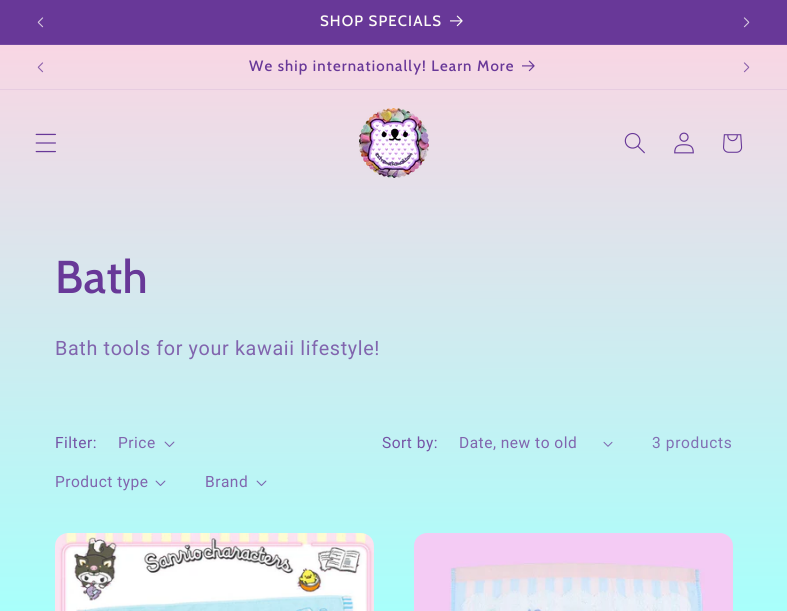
#include <cairo.h>
#include <math.h>
#include <stddef.h>

static cairo_t *ctx;

static void ink(unsigned color) {
    cairo_set_source_rgb(ctx, (color >> 16) / 255.0, (color >> 8 & 255) / 255.0, (color & 255) / 255.0);
}

static void write_spaced(double x, double y, const char *s, double letter, double word) {
    cairo_move_to(ctx, x, y);
    while (*s) {
        char ch[5] = {0};
        int n = 0;
        do ch[n++] = *s++; while ((*s & 0xC0) == 0x80);
        cairo_show_text(ctx, ch);
        cairo_rel_move_to(ctx, letter + word * (*ch == ' '), 0);
    }
}

static void block(double x, double y, double w, double h, unsigned color) {
    ink(color);
    cairo_rectangle(ctx, x, y, w, h);
    cairo_fill(ctx);
}

static void paste(const char *path, double x, double y, double w, double h) {
    cairo_surface_t *image = cairo_image_surface_create_from_png(path);
    cairo_save(ctx);
    cairo_set_source_surface(ctx, image, x, y);
    cairo_rectangle(ctx, x, y, w, h);
    cairo_fill(ctx);
    cairo_restore(ctx);
    cairo_surface_destroy(image);
}

int main(void) {
    cairo_surface_t *surface = cairo_image_surface_create(CAIRO_FORMAT_RGB24, 787, 611);
    ctx = cairo_create(surface);
    cairo_font_options_t *options = cairo_font_options_create();
    cairo_font_options_set_hint_metrics(options, CAIRO_HINT_METRICS_OFF);
    cairo_font_options_set_hint_style(options, CAIRO_HINT_STYLE_NONE);
    cairo_set_font_options(ctx, options);
    cairo_set_miter_limit(ctx, 4);
    cairo_pattern_t *gradient;
    ink(0xffffff);
    cairo_paint(ctx);
    gradient = cairo_pattern_create_linear(393, 0, 394, 611);
    cairo_pattern_add_color_stop_rgba(gradient, 0, 1, 0.827, 0.886, 1);
    cairo_pattern_add_color_stop_rgba(gradient, 1, 0.659, 1, 0.984, 1);
    cairo_set_source(ctx, gradient);
    cairo_pattern_destroy(gradient);
    cairo_rectangle(ctx, 0, 45, 787, 566);
    cairo_fill(ctx);
    block(0, 0, 787, 44, 0x683898);
    block(0, 44, 787, 1, 0x7448a0);
    paste("pic1.png", 37, 17, 7, 11);
    cairo_select_font_face(ctx, "Cabin Medium", CAIRO_FONT_SLANT_NORMAL, CAIRO_FONT_WEIGHT_NORMAL);
    cairo_set_font_size(ctx, 15);
    ink(0xfdfbf7);
    write_spaced(320, 26, "SHOP SPECIALS", 1.1, 0);
    paste("pic2.png", 450, 15, 13, 12);
    paste("pic3.png", 743, 17, 7, 11);
    block(0, 89, 787, 1, 0xe7cce0);
    paste("pic4.png", 37, 62, 7, 11);
    ink(0x683898);
    write_spaced(249, 71, "We ship internationally! Learn More", 1.1, 0);
    paste("pic5.png", 522, 60, 13, 12);
    paste("pic6.png", 743, 62, 7, 11);
    paste("pic7.png", 35, 133, 21, 20);
    paste("pic8.png", 359, 108, 70, 70);
    paste("pic9.png", 624, 132, 21, 22);
    paste("pic10.png", 674, 132, 20, 22);
    paste("pic11.png", 723, 134, 20, 19);
    cairo_set_font_size(ctx, 46);
    write_spaced(55, 293, "Bath", 0.5, 0);
    cairo_select_font_face(ctx, "Roboto", CAIRO_FONT_SLANT_NORMAL, CAIRO_FONT_WEIGHT_NORMAL);
    cairo_set_font_size(ctx, 19.75);
    ink(0x8165ae);
    write_spaced(55, 355, "Bath tools for your kawaii lifestyle!", 0.65, 0);
    cairo_set_font_size(ctx, 15.5);
    ink(0x7554a6);
    write_spaced(55, 448, "Filter:", 0.5, 0);
    ink(0x8165ae);
    write_spaced(118, 448, "Price", 0.5, 0);
    paste("pic12.png", 164, 441, 11, 6);
    write_spaced(55, 487, "Product type", 0.5, 0);
    paste("pic13.png", 155, 480, 11, 6);
    write_spaced(205, 487, "Brand", 0.5, 0);
    paste("pic13.png", 256, 480, 11, 6);
    ink(0x7554a6);
    write_spaced(382, 448, "Sort by:", 0.5, 0);
    ink(0x8165ae);
    write_spaced(459, 448, "Date, new to old", 0.5, 0);
    paste("pic14.png", 603, 441, 10, 6);
    ink(0x8270b4);
    write_spaced(652, 448, "3 products", 0.65, 0);
    paste("pic15.png", 55, 533, 319, 78);
    paste("pic16.png", 414, 533, 319, 78);
    cairo_surface_write_to_png(surface, "screenshot.png");
    cairo_font_options_destroy(options);
    cairo_destroy(ctx);
    cairo_surface_destroy(surface);
    return 0;
}
